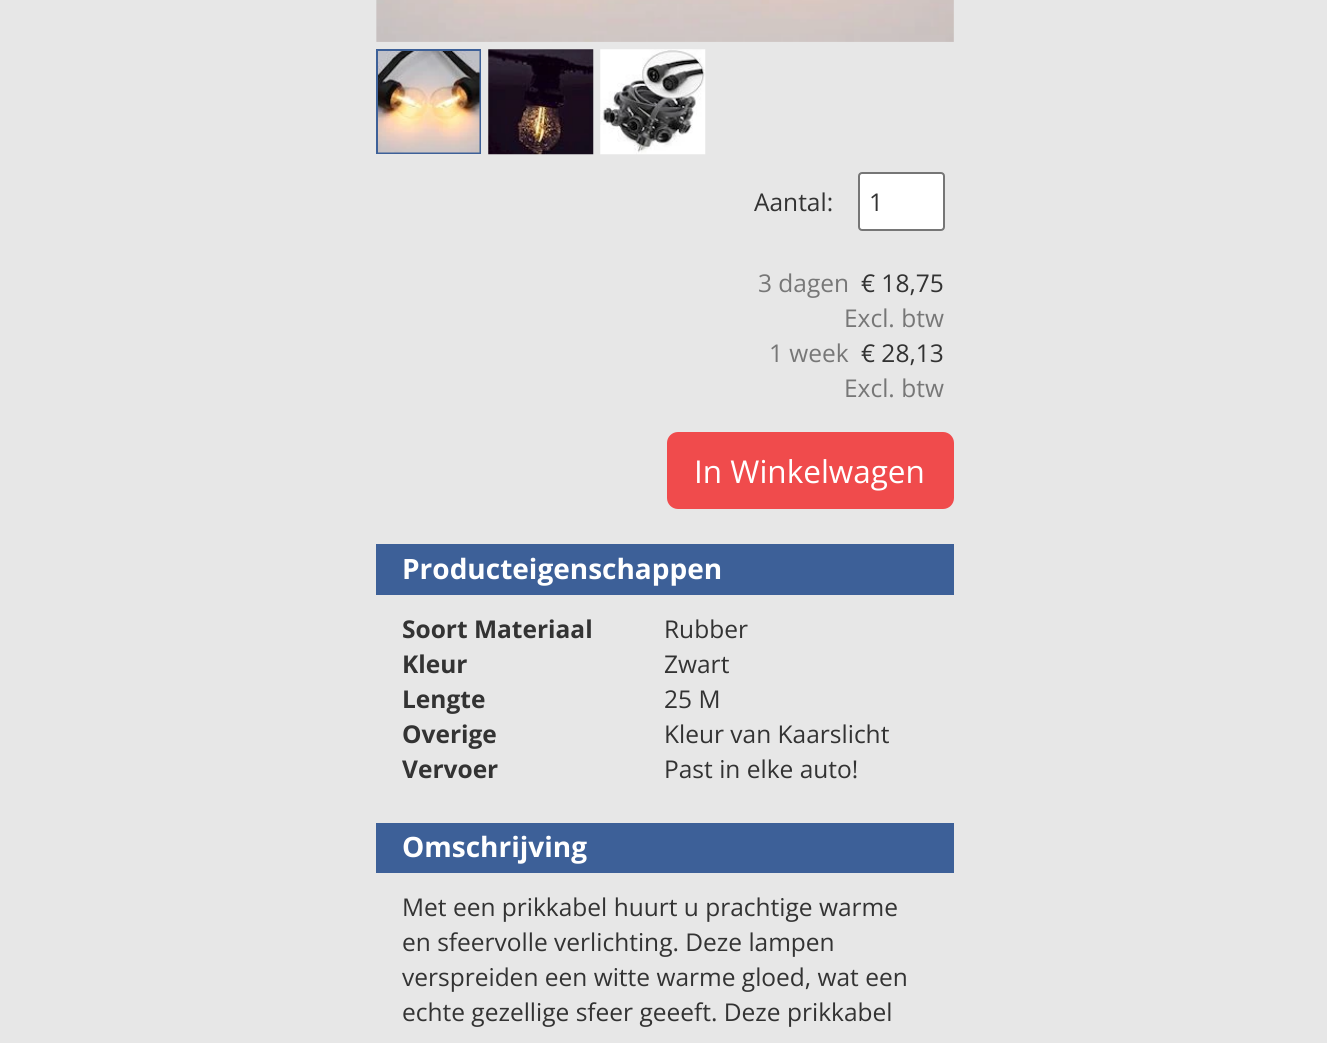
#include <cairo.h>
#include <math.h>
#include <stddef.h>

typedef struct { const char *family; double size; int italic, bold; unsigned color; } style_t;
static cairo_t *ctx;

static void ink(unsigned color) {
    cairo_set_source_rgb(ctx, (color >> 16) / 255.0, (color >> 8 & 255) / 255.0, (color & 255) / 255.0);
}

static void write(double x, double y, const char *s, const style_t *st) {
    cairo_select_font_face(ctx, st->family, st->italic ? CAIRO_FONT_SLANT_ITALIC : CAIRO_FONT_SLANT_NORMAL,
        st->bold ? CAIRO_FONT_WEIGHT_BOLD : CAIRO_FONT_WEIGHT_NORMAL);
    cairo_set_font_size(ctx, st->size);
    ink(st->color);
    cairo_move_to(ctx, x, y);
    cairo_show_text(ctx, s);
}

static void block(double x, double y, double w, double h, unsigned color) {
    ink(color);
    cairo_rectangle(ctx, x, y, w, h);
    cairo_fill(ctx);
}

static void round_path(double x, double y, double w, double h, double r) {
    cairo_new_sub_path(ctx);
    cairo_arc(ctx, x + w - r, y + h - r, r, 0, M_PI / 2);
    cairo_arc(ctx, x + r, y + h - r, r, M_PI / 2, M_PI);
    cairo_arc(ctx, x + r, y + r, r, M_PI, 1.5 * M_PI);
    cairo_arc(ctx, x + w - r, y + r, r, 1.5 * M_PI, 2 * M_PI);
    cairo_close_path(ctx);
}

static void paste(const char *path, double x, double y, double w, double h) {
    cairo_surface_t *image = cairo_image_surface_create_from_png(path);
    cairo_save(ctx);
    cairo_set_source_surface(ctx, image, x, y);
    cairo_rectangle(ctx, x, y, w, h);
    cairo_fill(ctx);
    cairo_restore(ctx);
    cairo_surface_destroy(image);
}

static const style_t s1 = {"Open Sans", 24.5, 0, 0, 0x333333};
static const style_t s2 = {"Open Sans", 24.5, 0, 0, 0x777777};
static const style_t s3 = {"Open Sans", 31.5, 0, 0, 0xffffff};
static const style_t s4 = {"Open Sans", 28, 0, 1, 0xffffff};
static const style_t s5 = {"Open Sans", 24.5, 0, 1, 0x333333};

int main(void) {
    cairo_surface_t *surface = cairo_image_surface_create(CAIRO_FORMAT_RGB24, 1327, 1043);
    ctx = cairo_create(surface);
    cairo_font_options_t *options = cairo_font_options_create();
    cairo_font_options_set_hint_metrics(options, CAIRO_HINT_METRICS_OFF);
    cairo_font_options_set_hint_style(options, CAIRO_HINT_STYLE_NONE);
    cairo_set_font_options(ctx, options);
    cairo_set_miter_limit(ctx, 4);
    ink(0xe7e7e7);
    cairo_paint(ctx);
    paste("pic1.png", 376, 0, 578, 42);
    cairo_rectangle(ctx, 377, 50, 103, 103);
    ink(0x3d6098);
    cairo_stroke(ctx);
    paste("pic2.png", 378, 51, 102, 102);
    paste("pic3.png", 488, 49, 106, 106);
    paste("pic4.png", 600, 49, 106, 106);
    write(754, 211, "Aantal:", &s1);
    ink(0xffffff);
    round_path(859, 173, 85, 57, 3);
    cairo_fill_preserve(ctx);
    ink(0x767676);
    cairo_stroke(ctx);
    write(869, 211, "1", &s1);
    write(758, 292, "3 dagen", &s2);
    write(861, 292, "€ 18,75", &s1);
    write(844, 327, "Excl. btw", &s2);
    write(769, 362, "1 week", &s2);
    write(861, 362, "€ 28,13", &s1);
    write(844, 397, "Excl. btw", &s2);
    ink(0xf04b4c);
    round_path(667, 432, 287, 77, 11);
    cairo_fill(ctx);
    write(694, 483, "In Winkelwagen", &s3);
    block(376, 544, 578, 51, 0x3d6098);
    write(402, 579, "Producteigenschappen", &s4);
    write(402, 638, "Soort Materiaal", &s5);
    write(664, 638, "Rubber", &s1);
    write(402, 673, "Kleur", &s5);
    write(664, 673, "Zwart", &s1);
    write(402, 708, "Lengte", &s5);
    write(664, 708, "25 M", &s1);
    write(402, 743, "Overige", &s5);
    write(664, 743, "Kleur van Kaarslicht", &s1);
    write(402, 778, "Vervoer", &s5);
    write(664, 778, "Past in elke auto!", &s1);
    block(376, 823, 578, 50, 0x3d6098);
    write(402, 857, "Omschrijving", &s4);
    write(402, 916, "Met een prikkabel huurt u prachtige warme", &s1);
    write(402, 951, "en sfeervolle verlichting. Deze lampen", &s1);
    write(402, 986, "verspreiden een witte warme gloed, wat een", &s1);
    write(402, 1021, "echte gezellige sfeer geeeft. Deze prikkabel", &s1);
    cairo_surface_write_to_png(surface, "screenshot.png");
    cairo_font_options_destroy(options);
    cairo_destroy(ctx);
    cairo_surface_destroy(surface);
    return 0;
}
